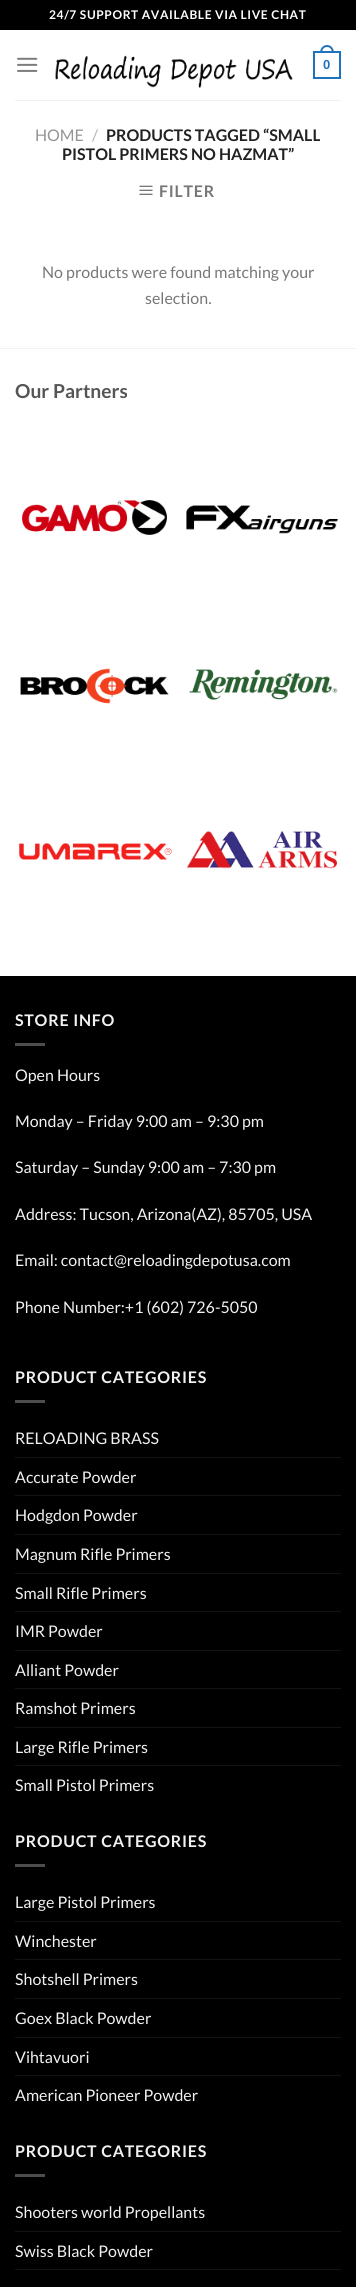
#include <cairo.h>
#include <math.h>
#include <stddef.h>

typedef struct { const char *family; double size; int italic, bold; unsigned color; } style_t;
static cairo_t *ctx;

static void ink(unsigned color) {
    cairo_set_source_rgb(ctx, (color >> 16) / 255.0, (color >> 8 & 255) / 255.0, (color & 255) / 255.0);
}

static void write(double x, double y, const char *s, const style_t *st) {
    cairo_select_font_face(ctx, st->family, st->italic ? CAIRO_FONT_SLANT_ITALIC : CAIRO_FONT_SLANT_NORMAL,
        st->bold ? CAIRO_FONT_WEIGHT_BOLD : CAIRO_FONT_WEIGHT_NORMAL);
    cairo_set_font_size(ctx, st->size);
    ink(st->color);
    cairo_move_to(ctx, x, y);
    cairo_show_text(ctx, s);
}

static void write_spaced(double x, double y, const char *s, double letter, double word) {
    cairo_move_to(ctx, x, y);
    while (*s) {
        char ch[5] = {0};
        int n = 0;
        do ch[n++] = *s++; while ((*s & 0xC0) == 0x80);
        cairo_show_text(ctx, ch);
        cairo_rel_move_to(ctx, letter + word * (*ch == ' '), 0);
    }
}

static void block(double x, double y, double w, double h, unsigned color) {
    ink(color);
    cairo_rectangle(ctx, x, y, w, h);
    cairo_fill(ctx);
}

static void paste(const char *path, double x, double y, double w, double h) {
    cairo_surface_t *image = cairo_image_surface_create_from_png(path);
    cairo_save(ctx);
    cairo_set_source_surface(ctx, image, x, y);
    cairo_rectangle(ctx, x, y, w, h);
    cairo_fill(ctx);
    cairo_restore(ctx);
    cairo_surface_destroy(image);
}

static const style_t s1 = {"Liberation Sans", 13, 0, 1, 0x1e73be};
static const style_t s2 = {"Lato", 16, 0, 0, 0x949494};
static const style_t s3 = {"Lato", 16, 0, 0, 0xb2b2b2};
static const style_t s4 = {"Lato", 16, 0, 1, 0x222222};
static const style_t s5 = {"Lato", 16, 0, 0, 0x777777};
static const style_t s6 = {"Lato", 19.25, 0, 1, 0x555555};
static const style_t s7 = {"Lato", 16, 0, 0, 0xf1f1f1};

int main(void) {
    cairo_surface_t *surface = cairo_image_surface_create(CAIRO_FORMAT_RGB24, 356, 2287);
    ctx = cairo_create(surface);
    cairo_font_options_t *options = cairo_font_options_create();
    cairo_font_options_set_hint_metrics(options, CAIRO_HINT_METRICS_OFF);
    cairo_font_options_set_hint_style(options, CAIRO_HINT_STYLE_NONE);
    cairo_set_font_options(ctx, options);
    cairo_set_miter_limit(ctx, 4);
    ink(0xffffff);
    cairo_paint(ctx);
    block(0, 0, 356, 30, 0x000000);
    cairo_select_font_face(ctx, "Lato", CAIRO_FONT_SLANT_NORMAL, CAIRO_FONT_WEIGHT_BOLD);
    cairo_set_font_size(ctx, 12);
    ink(0xffffff);
    write_spaced(49, 19, "24/7 SUPPORT AVAILABLE VIA LIVE CHAT", 0.6, 0);
    paste("pic1.png", 17, 57, 21, 15);
    paste("pic2.png", 55, 55, 238, 33);
    cairo_rectangle(ctx, 314, 52, 26, 26);
    ink(0x1e73be);
    cairo_stroke(ctx);
    cairo_set_fill_rule(ctx, CAIRO_FILL_RULE_EVEN_ODD);
    cairo_new_path(ctx);
    cairo_move_to(ctx, 327, 45);
    cairo_curve_to(ctx, 331.5, 45, 334, 49, 334, 53);
    cairo_line_to(ctx, 320, 53);
    cairo_curve_to(ctx, 320, 49, 322.5, 45, 327, 45);
    cairo_close_path(ctx);
    cairo_move_to(ctx, 327, 47);
    cairo_curve_to(ctx, 330.5, 47, 332, 50, 332, 53);
    cairo_line_to(ctx, 322, 53);
    cairo_curve_to(ctx, 322, 50, 323.5, 47, 327, 47);
    cairo_close_path(ctx);
    cairo_fill(ctx);
    write(323, 69, "0", &s1);
    block(15, 100, 326, 1, 0xf1f1f1);
    write(35, 141, "HOME", &s2);
    write(92, 141, "/", &s3);
    write(106, 141, "PRODUCTS TAGGED “SMALL", &s4);
    write(62, 160, "PISTOL PRIMERS NO HAZMAT”", &s4);
    paste("pic3.png", 139, 185, 14, 10);
    ink(0x777777);
    write_spaced(159, 197, "FILTER", 0.75, 0);
    write(42, 278, "No products were found matching your", &s5);
    write(145, 304, "selection.", &s5);
    block(0, 348, 356, 1, 0xf2f2f2);
    write(15, 398, "Our Partners", &s6);
    paste("pic4.png", 21, 500, 146, 35);
    paste("pic5.png", 186, 505, 152, 29);
    paste("pic6.png", 20, 668, 149, 36);
    paste("pic7.png", 189, 669, 149, 31);
    paste("pic8.png", 19, 842, 153, 18);
    paste("pic9.png", 186, 831, 152, 38);
    block(0, 976, 356, 1311, 0x000000);
    cairo_set_font_size(ctx, 16);
    ink(0xf1f1f1);
    write_spaced(15, 1026, "STORE INFO", 0.75, 0);
    block(15, 1043, 30, 3, 0x4d4d4d);
    write(15, 1081, "Open Hours", &s7);
    write(15, 1127, "Monday – Friday 9:00 am – 9:30 pm", &s7);
    write(15, 1173, "Saturday – Sunday 9:00 am – 7:30 pm", &s7);
    write(15, 1220, "Address: Tucson, Arizona(AZ), 85705, USA", &s7);
    write(15, 1266, "Email: contact@reloadingdepotusa.com", &s7);
    write(15, 1313, "Phone Number:+1 (602) 726-5050", &s7);
    cairo_select_font_face(ctx, "Lato", CAIRO_FONT_SLANT_NORMAL, CAIRO_FONT_WEIGHT_BOLD);
    write_spaced(15, 1383, "PRODUCT CATEGORIES", 0.75, 0);
    block(15, 1400, 30, 3, 0x4d4d4d);
    write(15, 1444, "RELOADING BRASS", &s7);
    block(15, 1457, 326, 1, 0x141414);
    write(15, 1483, "Accurate Powder", &s7);
    block(15, 1495, 326, 1, 0x141414);
    write(15, 1521, "Hodgdon Powder", &s7);
    block(15, 1534, 326, 1, 0x141414);
    write(15, 1560, "Magnum Rifle Primers", &s7);
    block(15, 1573, 326, 1, 0x141414);
    write(15, 1599, "Small Rifle Primers", &s7);
    block(15, 1611, 326, 1, 0x141414);
    write(15, 1637, "IMR Powder", &s7);
    block(15, 1650, 326, 1, 0x141414);
    write(15, 1676, "Alliant Powder", &s7);
    block(15, 1688, 326, 1, 0x141414);
    write(15, 1714, "Ramshot Primers", &s7);
    block(15, 1727, 326, 1, 0x141414);
    write(15, 1753, "Large Rifle Primers", &s7);
    block(15, 1765, 326, 1, 0x141414);
    write(15, 1791, "Small Pistol Primers", &s7);
    cairo_select_font_face(ctx, "Lato", CAIRO_FONT_SLANT_NORMAL, CAIRO_FONT_WEIGHT_BOLD);
    write_spaced(15, 1847, "PRODUCT CATEGORIES", 0.75, 0);
    block(15, 1864, 30, 3, 0x4d4d4d);
    write(15, 1908, "Large Pistol Primers", &s7);
    block(15, 1921, 326, 1, 0x141414);
    write(15, 1947, "Winchester", &s7);
    block(15, 1959, 326, 1, 0x141414);
    write(15, 1985, "Shotshell Primers", &s7);
    block(15, 1998, 326, 1, 0x141414);
    write(15, 2024, "Goex Black Powder", &s7);
    block(15, 2037, 326, 1, 0x141414);
    write(15, 2063, "Vihtavuori", &s7);
    block(15, 2075, 326, 1, 0x141414);
    write(15, 2101, "American Pioneer Powder", &s7);
    cairo_select_font_face(ctx, "Lato", CAIRO_FONT_SLANT_NORMAL, CAIRO_FONT_WEIGHT_BOLD);
    write_spaced(15, 2157, "PRODUCT CATEGORIES", 0.75, 0);
    block(15, 2174, 30, 3, 0x4d4d4d);
    write(15, 2218, "Shooters world Propellants", &s7);
    block(15, 2231, 326, 1, 0x141414);
    write(15, 2257, "Swiss Black Powder", &s7);
    block(15, 2269, 326, 1, 0x141414);
    cairo_surface_write_to_png(surface, "screenshot.png");
    cairo_font_options_destroy(options);
    cairo_destroy(ctx);
    cairo_surface_destroy(surface);
    return 0;
}
